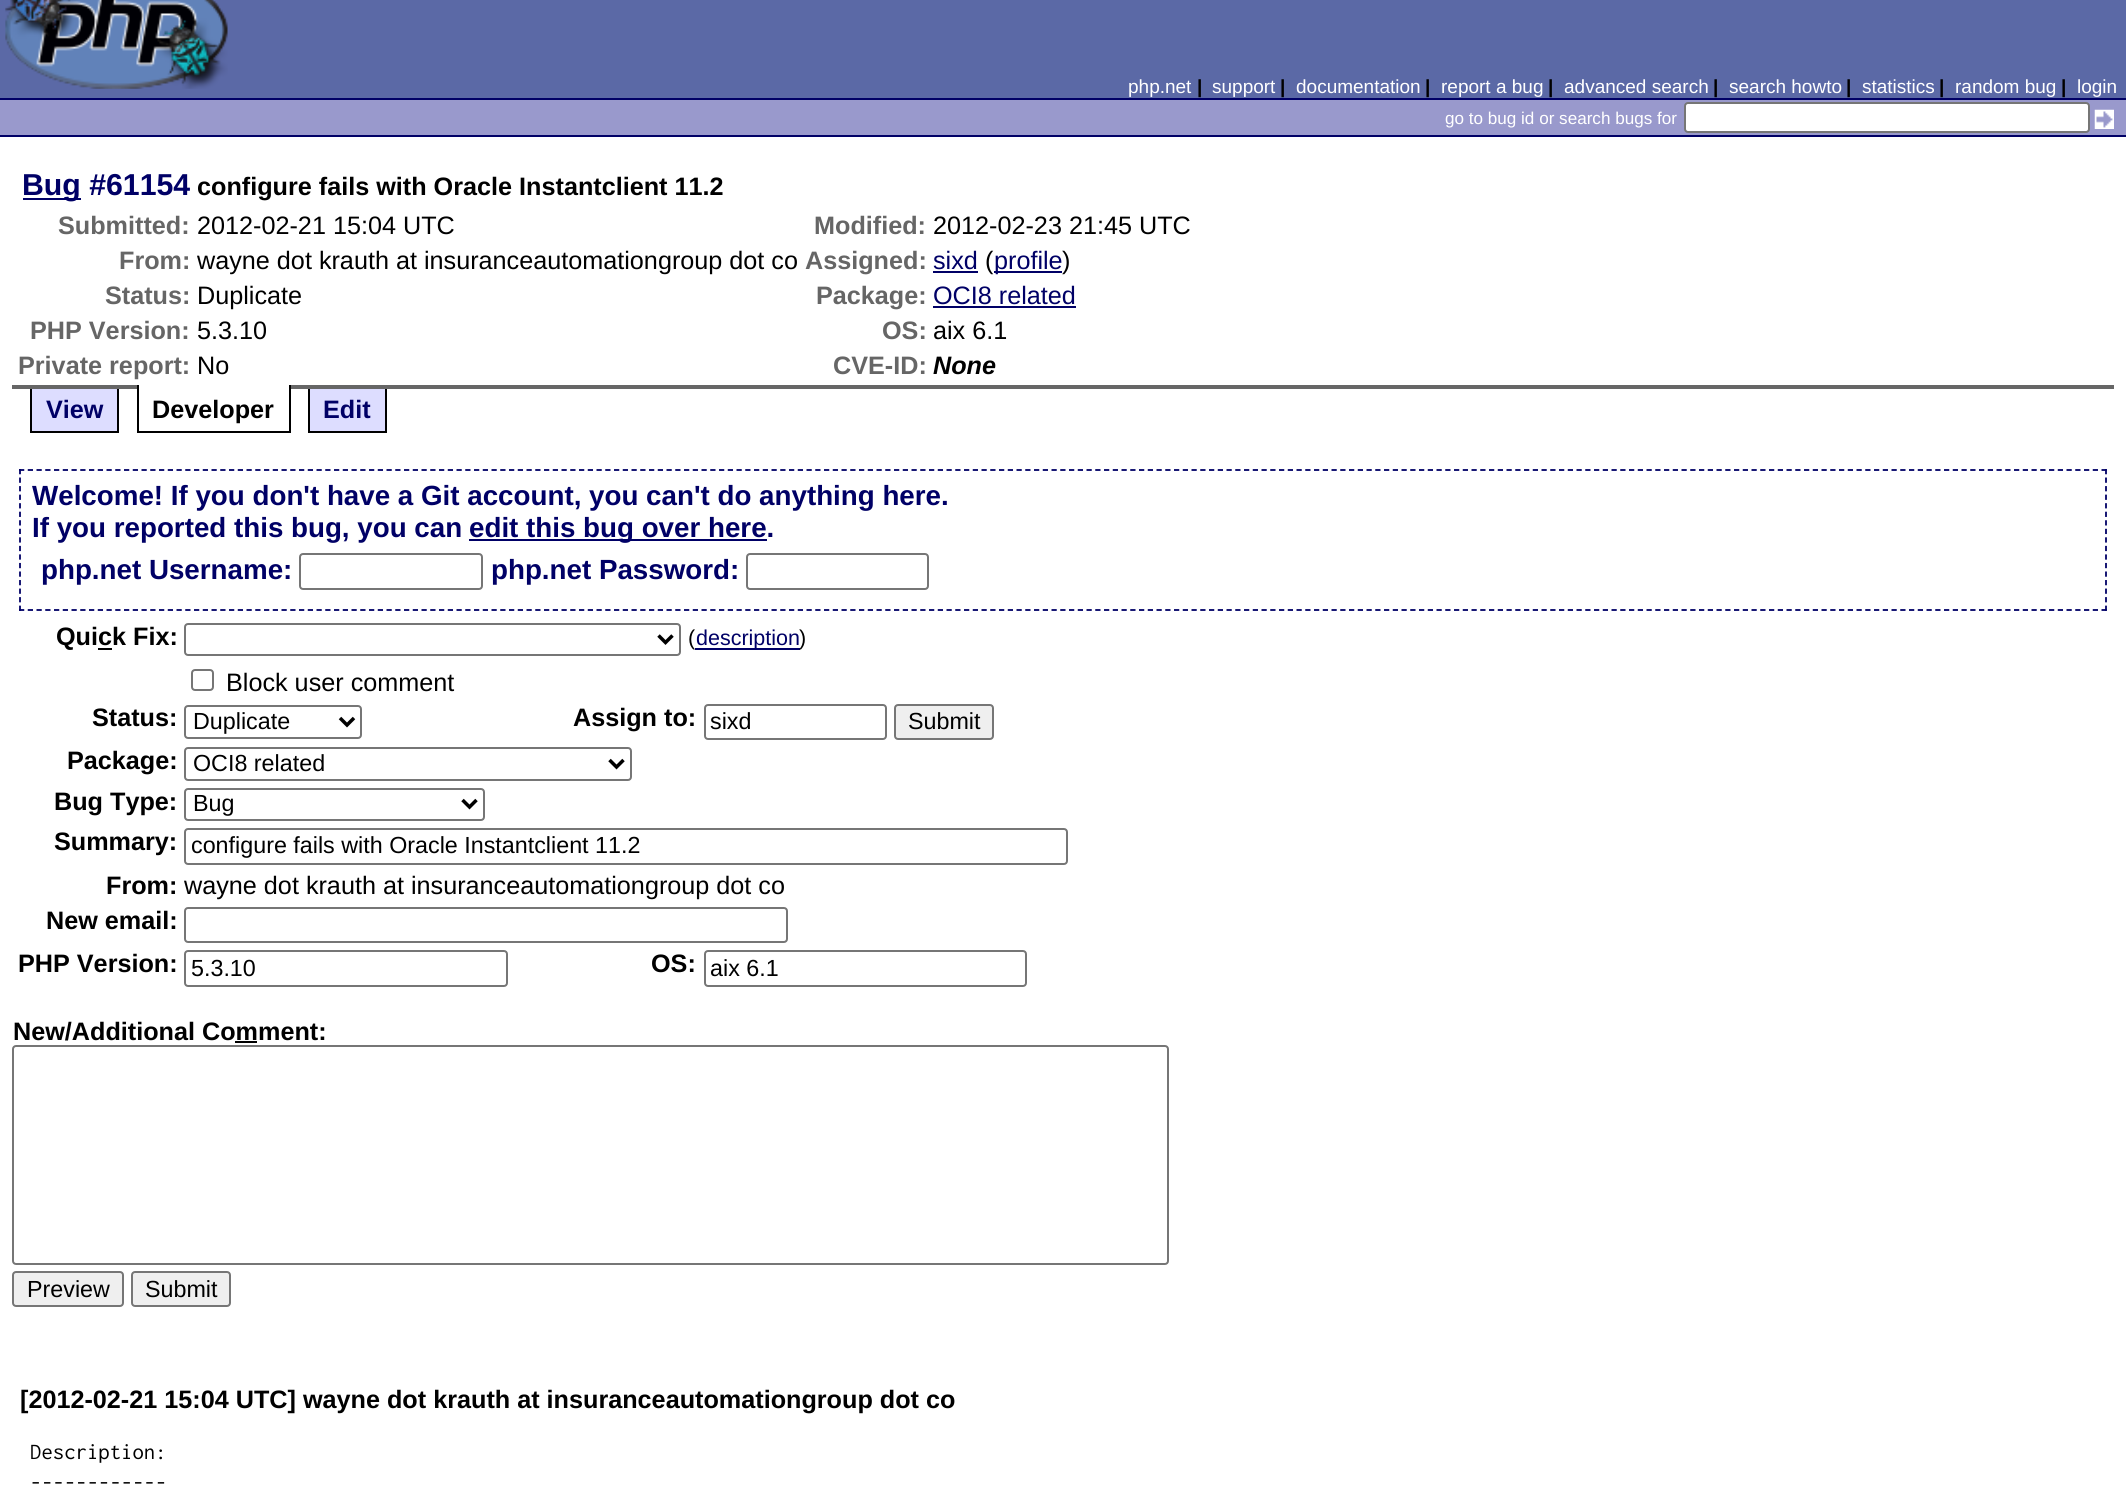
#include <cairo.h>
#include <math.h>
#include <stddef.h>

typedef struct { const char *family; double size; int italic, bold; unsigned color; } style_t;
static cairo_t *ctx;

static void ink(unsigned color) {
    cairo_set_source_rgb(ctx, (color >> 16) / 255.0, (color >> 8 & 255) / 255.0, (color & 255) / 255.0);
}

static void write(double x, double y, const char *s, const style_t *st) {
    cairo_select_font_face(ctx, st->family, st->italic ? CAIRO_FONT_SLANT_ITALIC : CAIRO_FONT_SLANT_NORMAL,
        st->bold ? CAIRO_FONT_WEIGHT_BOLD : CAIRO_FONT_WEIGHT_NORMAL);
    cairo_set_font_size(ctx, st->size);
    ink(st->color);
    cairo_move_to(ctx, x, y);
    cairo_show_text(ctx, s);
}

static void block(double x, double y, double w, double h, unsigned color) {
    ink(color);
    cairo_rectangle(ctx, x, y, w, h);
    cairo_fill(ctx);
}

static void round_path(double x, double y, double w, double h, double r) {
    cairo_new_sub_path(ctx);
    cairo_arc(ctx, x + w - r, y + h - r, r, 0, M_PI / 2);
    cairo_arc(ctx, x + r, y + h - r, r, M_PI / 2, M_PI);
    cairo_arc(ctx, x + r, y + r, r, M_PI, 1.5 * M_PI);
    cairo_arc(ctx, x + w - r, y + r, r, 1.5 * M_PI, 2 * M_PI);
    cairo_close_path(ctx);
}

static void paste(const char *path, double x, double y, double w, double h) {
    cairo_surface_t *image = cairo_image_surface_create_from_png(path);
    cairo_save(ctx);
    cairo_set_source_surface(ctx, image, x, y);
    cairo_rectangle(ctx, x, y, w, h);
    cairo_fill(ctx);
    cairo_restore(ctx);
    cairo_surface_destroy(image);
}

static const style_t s1 = {"Liberation Sans", 19, 0, 0, 0xffffff};
static const style_t s2 = {"Liberation Sans", 19, 0, 1, 0x000000};
static const style_t s3 = {"Liberation Sans", 17.1, 0, 0, 0xffffff};
static const style_t s4 = {"Liberation Sans", 30.25, 0, 1, 0x000066};
static const style_t s5 = {"Liberation Sans", 25.2, 0, 1, 0x000000};
static const style_t s6 = {"Liberation Sans", 25.2, 0, 1, 0x666666};
static const style_t s7 = {"Liberation Sans", 25.2, 0, 0, 0x000000};
static const style_t s8 = {"Liberation Sans", 25.2, 0, 0, 0x000066};
static const style_t s9 = {"Liberation Sans", 25.2, 1, 1, 0x000000};
static const style_t s10 = {"Liberation Sans", 25.2, 0, 1, 0x000066};
static const style_t s11 = {"Liberation Sans", 27.75, 0, 1, 0x000066};
static const style_t s12 = {"Liberation Sans", 21.5, 0, 0, 0x000000};
static const style_t s13 = {"Liberation Sans", 21.5, 0, 0, 0x000066};
static const style_t s14 = {"Liberation Sans", 23.3, 0, 0, 0x000000};
static const style_t s15 = {"Inconsolata", 22.75, 0, 0, 0x000000};

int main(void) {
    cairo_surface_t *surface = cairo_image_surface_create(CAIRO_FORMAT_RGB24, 2126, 1494);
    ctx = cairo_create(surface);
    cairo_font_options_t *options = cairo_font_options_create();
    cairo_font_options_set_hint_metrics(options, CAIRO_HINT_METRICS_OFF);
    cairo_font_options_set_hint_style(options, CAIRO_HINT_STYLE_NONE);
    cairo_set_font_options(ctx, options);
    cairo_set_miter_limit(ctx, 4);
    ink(0xffffff);
    cairo_paint(ctx);
    block(0, 0, 2126, 98, 0x5b69a6);
    paste("pic1.png", 5, 0, 223, 89);
    write(1128, 93, "php.net", &s1);
    write(1197, 93, "|", &s2);
    write(1212, 93, "support", &s1);
    write(1280, 93, "|", &s2);
    write(1296, 93, "documentation", &s1);
    write(1425, 93, "|", &s2);
    write(1441, 93, "report a bug", &s1);
    write(1548, 93, "|", &s2);
    write(1564, 93, "advanced search", &s1);
    write(1713, 93, "|", &s2);
    write(1729, 93, "search howto", &s1);
    write(1846, 93, "|", &s2);
    write(1862, 93, "statistics", &s1);
    write(1939, 93, "|", &s2);
    write(1955, 93, "random bug", &s1);
    write(2061, 93, "|", &s2);
    write(2077, 93, "login", &s1);
    block(0, 100, 2126, 35, 0x9999cc);
    block(0, 98, 2126, 2, 0x000066);
    block(0, 135, 2126, 2, 0x000066);
    write(1445, 124, "go to bug id or search bugs for", &s3);
    round_path(1685, 103, 404, 29, 3);
    cairo_fill_preserve(ctx);
    ink(0x767676);
    cairo_stroke(ctx);
    paste("pic2.png", 2094, 109, 20, 20);
    block(12, 385, 2102, 4, 0x666666);
    block(23, 198, 58, 2, 0x000066);
    write(22, 195, "Bug #61154", &s4);
    write(197, 195, "configure fails with Oracle Instantclient 11.2", &s5);
    write(58, 234, "Submitted:", &s6);
    write(197, 234, "2012-02-21 15:04 UTC", &s7);
    write(814, 234, "Modified:", &s6);
    write(933, 234, "2012-02-23 21:45 UTC", &s7);
    write(119, 269, "From:", &s6);
    write(197, 269, "wayne dot krauth at insuranceautomationgroup dot co", &s7);
    write(805, 269, "Assigned:", &s6);
    write(933, 269, "sixd", &s8);
    block(933, 271, 45, 2, 0x000066);
    write(985, 269, "(", &s7);
    block(994, 271, 68, 2, 0x000066);
    write(994, 269, "profile", &s8);
    write(1062, 269, ")", &s7);
    write(105, 304, "Status:", &s6);
    write(197, 304, "Duplicate", &s7);
    write(816, 304, "Package:", &s6);
    write(933, 304, "OCI8 related", &s8);
    block(933, 306, 143, 2, 0x000066);
    write(30, 339, "PHP Version:", &s6);
    write(197, 339, "5.3.10", &s7);
    write(882, 339, "OS:", &s6);
    write(933, 339, "aix 6.1", &s7);
    write(18, 374, "Private report:", &s6);
    write(197, 374, "No", &s7);
    write(833, 374, "CVE-ID:", &s6);
    write(933, 374, "None", &s9);
    block(32, 389, 85, 42, 0xddddff);
    block(117, 389, 2, 43, 0x000000);
    block(30, 431, 89, 2, 0x000000);
    block(30, 389, 2, 43, 0x000000);
    write(46, 418, "View", &s10);
    block(139, 385, 150, 4, 0xffffff);
    block(289, 385, 2, 47, 0x000000);
    block(137, 431, 154, 2, 0x000000);
    block(137, 385, 2, 47, 0x000000);
    write(152, 418, "Developer", &s5);
    block(310, 389, 75, 42, 0xddddff);
    block(385, 389, 2, 43, 0x000000);
    block(308, 431, 79, 2, 0x000000);
    block(308, 389, 2, 43, 0x000000);
    write(323, 418, "Edit", &s10);
    cairo_new_path(ctx);
    cairo_move_to(ctx, 19, 470);
    cairo_line_to(ctx, 2107, 470);
    cairo_set_line_width(ctx, 1.8);
    cairo_set_dash(ctx, (double[]){5.25, 3.5}, 2, 0);
    cairo_stroke(ctx);
    cairo_new_path(ctx);
    cairo_move_to(ctx, 2106, 469);
    cairo_line_to(ctx, 2106, 611);
    cairo_set_dash(ctx, (double[]){5.25, 3.29}, 2, 0);
    cairo_stroke(ctx);
    cairo_new_path(ctx);
    cairo_move_to(ctx, 19, 610);
    cairo_line_to(ctx, 2107, 610);
    cairo_set_dash(ctx, (double[]){5.25, 3.5}, 2, 0);
    cairo_stroke(ctx);
    cairo_new_path(ctx);
    cairo_move_to(ctx, 20, 469);
    cairo_line_to(ctx, 20, 611);
    cairo_set_dash(ctx, (double[]){5.25, 3.29}, 2, 0);
    cairo_stroke(ctx);
    write(32, 505, "Welcome! If you don't have a Git account, you can't do anything here.", &s11);
    write(32, 537, "If you reported this bug, you can", &s11);
    block(469, 539, 298, 2, 0x000066);
    write(469, 537, "edit this bug over here.", &s11);
    write(41, 579, "php.net Username:", &s11);
    round_path(300, 554, 182, 35, 3);
    ink(0x767676);
    cairo_set_line_width(ctx, 2);
    cairo_set_dash(ctx, NULL, 0, 0);
    cairo_stroke(ctx);
    write(491, 579, "php.net Password:", &s11);
    round_path(747, 554, 181, 35, 3);
    ink(0x767676);
    cairo_stroke(ctx);
    write(56, 645, "Quick Fix:", &s5);
    block(98, 648, 14, 2, 0x000000);
    round_path(185, 624, 495, 31, 3);
    ink(0x767676);
    cairo_stroke(ctx);
    cairo_new_path(ctx);
    cairo_move_to(ctx, 658.5, 635.5);
    cairo_line_to(ctx, 665.5, 642.5);
    cairo_line_to(ctx, 672.5, 635.5);
    ink(0x000000);
    cairo_set_line_width(ctx, 3.5);
    cairo_stroke(ctx);
    write(688, 645, "(", &s12);
    block(695, 648, 105, 2, 0x000066);
    write(696, 645, "description", &s13);
    write(799, 645, ")", &s12);
    round_path(192, 670, 21, 20, 3);
    ink(0x767676);
    cairo_set_line_width(ctx, 2);
    cairo_stroke(ctx);
    write(226, 691, "Block user comment", &s7);
    write(92, 726, "Status:", &s5);
    round_path(185, 706, 176, 32, 3);
    ink(0x767676);
    cairo_stroke(ctx);
    cairo_new_path(ctx);
    cairo_move_to(ctx, 340, 718);
    cairo_line_to(ctx, 347, 725);
    cairo_line_to(ctx, 354, 718);
    ink(0x000000);
    cairo_set_line_width(ctx, 3.5);
    cairo_stroke(ctx);
    write(193, 729, "Duplicate", &s14);
    write(573, 726, "Assign to:", &s5);
    round_path(705, 705, 181, 34, 3);
    ink(0x767676);
    cairo_set_line_width(ctx, 2);
    cairo_stroke(ctx);
    write(710, 729, "sixd", &s14);
    ink(0xefefef);
    round_path(895, 705, 98, 34, 3);
    cairo_fill_preserve(ctx);
    ink(0x767676);
    cairo_stroke(ctx);
    write(908, 729, "Submit", &s14);
    write(67, 769, "Package:", &s5);
    round_path(185, 748, 446, 32, 3);
    ink(0x767676);
    cairo_stroke(ctx);
    cairo_new_path(ctx);
    cairo_move_to(ctx, 609.5, 760);
    cairo_line_to(ctx, 616.5, 767);
    cairo_line_to(ctx, 623.5, 760);
    ink(0x000000);
    cairo_set_line_width(ctx, 3.5);
    cairo_stroke(ctx);
    write(193, 771, "OCI8 related", &s14);
    write(54, 810, "Bug Type:", &s5);
    round_path(185, 789, 299, 31, 3);
    ink(0x767676);
    cairo_set_line_width(ctx, 2);
    cairo_stroke(ctx);
    cairo_new_path(ctx);
    cairo_move_to(ctx, 462.5, 800);
    cairo_line_to(ctx, 469.5, 807);
    cairo_line_to(ctx, 476.5, 800);
    ink(0x000000);
    cairo_set_line_width(ctx, 3.5);
    cairo_stroke(ctx);
    write(193, 811, "Bug", &s14);
    write(54, 850, "Summary:", &s5);
    round_path(185, 829, 882, 35, 3);
    ink(0x767676);
    cairo_set_line_width(ctx, 2);
    cairo_stroke(ctx);
    write(191, 853, "configure fails with Oracle Instantclient 11.2", &s14);
    write(106, 894, "From:", &s5);
    write(184, 894, "wayne dot krauth at insuranceautomationgroup dot co", &s7);
    write(46, 929, "New email:", &s5);
    round_path(185, 908, 602, 34, 3);
    ink(0x767676);
    cairo_stroke(ctx);
    write(18, 972, "PHP Version:", &s5);
    round_path(185, 951, 322, 35, 3);
    ink(0x767676);
    cairo_stroke(ctx);
    write(191, 976, "5.3.10", &s14);
    write(651, 972, "OS:", &s5);
    round_path(705, 951, 321, 35, 3);
    ink(0x767676);
    cairo_stroke(ctx);
    write(710, 976, "aix 6.1", &s14);
    write(13, 1040, "New/Additional Comment:", &s5);
    block(235, 1041, 22, 2, 0x000000);
    round_path(13, 1046, 1155, 218, 3);
    ink(0x767676);
    cairo_stroke(ctx);
    ink(0xefefef);
    round_path(13, 1272, 110, 34, 3);
    cairo_fill_preserve(ctx);
    ink(0x767676);
    cairo_stroke(ctx);
    write(27, 1297, "Preview", &s14);
    ink(0xefefef);
    round_path(132, 1272, 98, 34, 3);
    cairo_fill_preserve(ctx);
    ink(0x767676);
    cairo_stroke(ctx);
    write(145, 1297, "Submit", &s14);
    write(20, 1408, "[2012-02-21 15:04 UTC] wayne dot krauth at insuranceautomationgroup dot co", &s5);
    write(30, 1459, "Description:", &s15);
    write(30, 1490, "------------", &s15);
    cairo_surface_write_to_png(surface, "screenshot.png");
    cairo_font_options_destroy(options);
    cairo_destroy(ctx);
    cairo_surface_destroy(surface);
    return 0;
}
